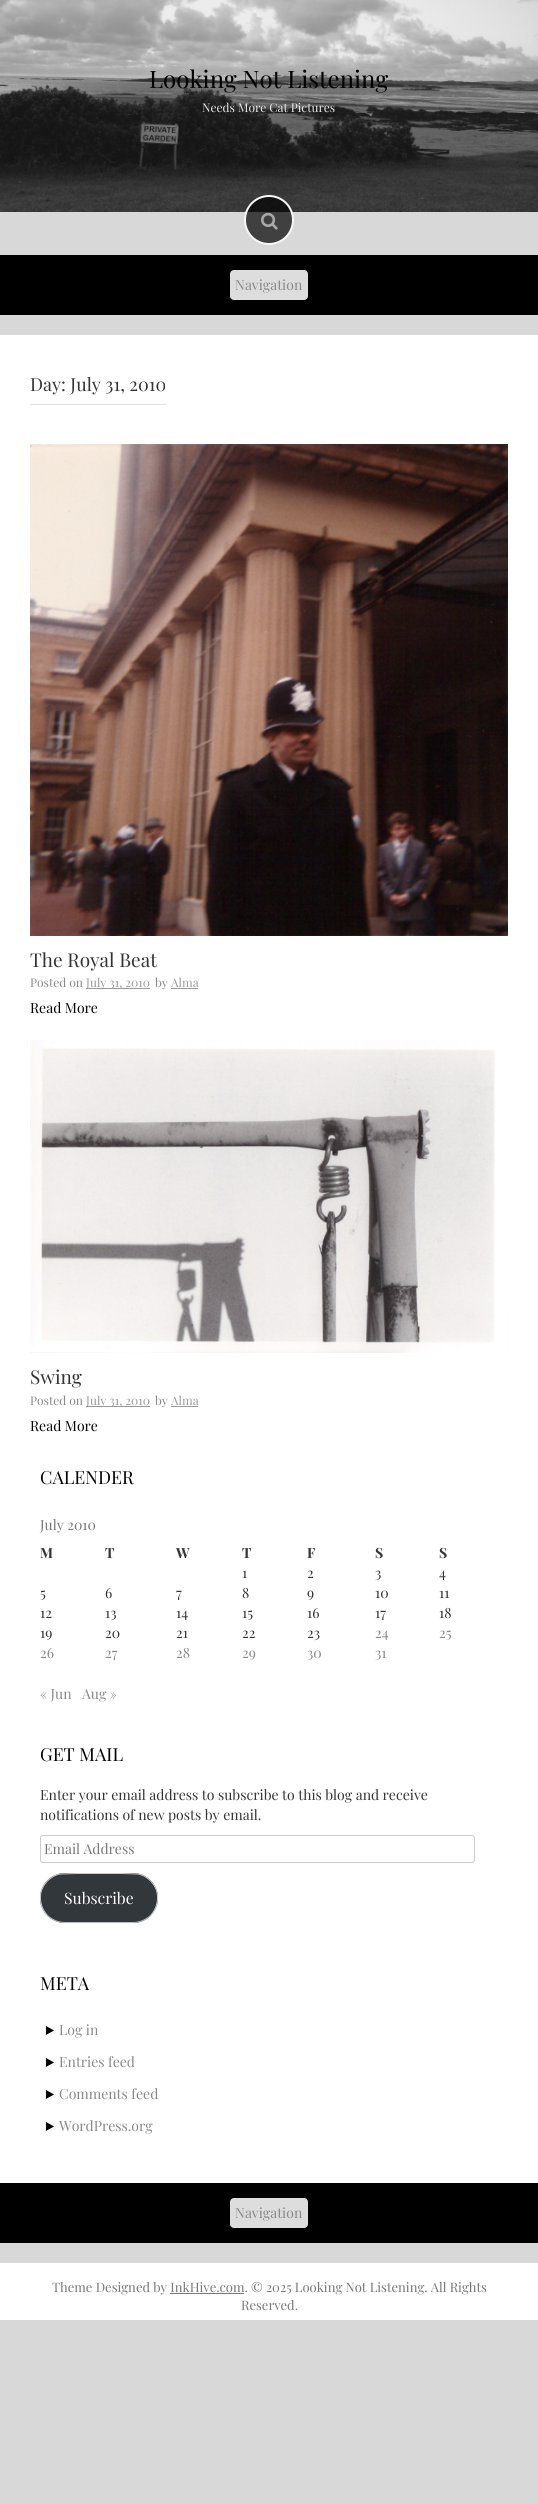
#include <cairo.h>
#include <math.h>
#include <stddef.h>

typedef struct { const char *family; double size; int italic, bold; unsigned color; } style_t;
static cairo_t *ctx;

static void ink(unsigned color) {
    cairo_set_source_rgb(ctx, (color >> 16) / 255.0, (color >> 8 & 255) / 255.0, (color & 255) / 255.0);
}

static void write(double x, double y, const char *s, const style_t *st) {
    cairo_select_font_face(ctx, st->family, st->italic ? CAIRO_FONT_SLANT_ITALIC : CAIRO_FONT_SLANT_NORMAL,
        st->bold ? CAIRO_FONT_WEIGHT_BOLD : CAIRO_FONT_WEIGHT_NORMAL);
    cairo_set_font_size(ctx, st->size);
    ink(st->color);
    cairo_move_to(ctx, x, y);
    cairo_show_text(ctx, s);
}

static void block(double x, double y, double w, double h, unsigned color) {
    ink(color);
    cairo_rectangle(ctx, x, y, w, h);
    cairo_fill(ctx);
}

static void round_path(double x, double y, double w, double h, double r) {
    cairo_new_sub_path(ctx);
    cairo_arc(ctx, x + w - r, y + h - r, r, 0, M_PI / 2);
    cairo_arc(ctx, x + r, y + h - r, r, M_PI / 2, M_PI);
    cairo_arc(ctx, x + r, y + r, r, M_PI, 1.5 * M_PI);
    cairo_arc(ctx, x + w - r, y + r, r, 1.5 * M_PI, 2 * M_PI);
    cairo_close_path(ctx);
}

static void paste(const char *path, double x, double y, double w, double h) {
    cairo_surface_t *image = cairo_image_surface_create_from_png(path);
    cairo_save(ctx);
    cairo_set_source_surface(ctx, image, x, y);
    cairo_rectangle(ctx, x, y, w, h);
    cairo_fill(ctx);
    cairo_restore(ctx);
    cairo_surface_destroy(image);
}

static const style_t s1 = {"Playfair Display", 24, 0, 0, 0x000000};
static const style_t s2 = {"Playfair Display", 12, 0, 0, 0xeaeaea};
static const style_t s3 = {"Playfair Display", 14, 0, 0, 0x888888};
static const style_t s4 = {"Playfair Display", 18, 0, 0, 0x333333};
static const style_t s5 = {"Playfair Display", 19, 0, 0, 0x333333};
static const style_t s6 = {"Playfair Display", 12, 0, 0, 0x888888};
static const style_t s7 = {"Playfair Display", 12, 0, 0, 0x999999};
static const style_t s8 = {"Playfair Display", 14, 0, 0, 0x000000};
static const style_t s9 = {"Playfair Display", 18, 0, 0, 0x000000};
static const style_t s10 = {"Playfair Display", 14, 0, 0, 0x777777};
static const style_t s11 = {"Playfair Display", 14, 0, 1, 0x333333};
static const style_t s12 = {"Playfair Display", 14, 0, 0, 0x333333};
static const style_t s13 = {"Playfair Display", 15.75, 0, 0, 0xffffff};
static const style_t s14 = {"Playfair Display", 13, 0, 0, 0x777777};

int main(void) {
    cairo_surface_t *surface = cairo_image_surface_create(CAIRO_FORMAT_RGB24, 538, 2504);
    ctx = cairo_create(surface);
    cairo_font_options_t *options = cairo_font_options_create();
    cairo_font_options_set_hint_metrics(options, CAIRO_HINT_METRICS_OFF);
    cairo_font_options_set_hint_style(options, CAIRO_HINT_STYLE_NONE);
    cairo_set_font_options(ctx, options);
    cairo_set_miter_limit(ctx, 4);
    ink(0xd8d8d8);
    cairo_paint(ctx);
    paste("pic1.png", 0, 0, 538, 212);
    write(149, 88, "Looking Not Listening", &s1);
    write(202, 112, "Needs More Cat Pictures", &s2);
    cairo_set_source_rgba(ctx, 0, 0, 0, 0.7);
    cairo_new_path(ctx);
    cairo_arc(ctx, 269, 220, 24, 0, 2 * M_PI);
    cairo_fill_preserve(ctx);
    ink(0xf7f7f7);
    cairo_stroke(ctx);
    paste("pic2.png", 261, 212, 17, 18);
    block(0, 255, 538, 60, 0x000000);
    ink(0xdddddd);
    round_path(230, 270, 78, 30, 4);
    cairo_fill(ctx);
    write(235, 290, "Navigation", &s3);
    block(0, 335, 538, 1848, 0xffffff);
    block(30, 404, 136, 1, 0xe1e1e1);
    write(30, 391, "Day: July 31, 2010", &s4);
    paste("pic3.png", 30, 444, 478, 492);
    write(30, 967, "The Royal Beat", &s5);
    write(30, 987, "Posted on", &s6);
    block(86, 988, 64, 1, 0x999999);
    write(86, 987, "July 31, 2010", &s7);
    write(155, 987, "by", &s6);
    write(171, 987, "Alma", &s7);
    block(171, 988, 27, 1, 0x999999);
    write(30, 1013, "Read More", &s8);
    paste("pic4.png", 30, 1040, 478, 313);
    write(30, 1384, "Swing", &s5);
    write(30, 1405, "Posted on", &s6);
    block(86, 1406, 64, 1, 0x999999);
    write(86, 1405, "July 31, 2010", &s7);
    write(155, 1405, "by", &s6);
    write(171, 1405, "Alma", &s7);
    block(171, 1406, 27, 1, 0x999999);
    write(30, 1431, "Read More", &s8);
    write(40, 1484, "CALENDER", &s9);
    write(40, 1530, "July 2010", &s10);
    write(40, 1558, "M", &s11);
    write(105, 1558, "T", &s11);
    write(176, 1558, "W", &s11);
    write(242, 1558, "T", &s11);
    write(307, 1558, "F", &s11);
    write(375, 1558, "S", &s11);
    write(439, 1558, "S", &s11);
    write(242, 1578, "1", &s12);
    write(307, 1578, "2", &s12);
    write(375, 1578, "3", &s12);
    write(439, 1578, "4", &s12);
    write(40, 1598, "5", &s12);
    write(105, 1598, "6", &s12);
    write(176, 1598, "7", &s12);
    write(242, 1598, "8", &s12);
    write(307, 1598, "9", &s12);
    write(375, 1598, "10", &s12);
    write(439, 1598, "11", &s12);
    write(40, 1618, "12", &s12);
    write(105, 1618, "13", &s12);
    write(176, 1618, "14", &s12);
    write(242, 1618, "15", &s12);
    write(307, 1618, "16", &s12);
    write(375, 1618, "17", &s12);
    write(439, 1618, "18", &s12);
    write(40, 1638, "19", &s12);
    write(105, 1638, "20", &s12);
    write(176, 1638, "21", &s12);
    write(242, 1638, "22", &s12);
    write(307, 1638, "23", &s12);
    write(375, 1638, "24", &s3);
    write(439, 1638, "25", &s3);
    write(40, 1658, "26", &s3);
    write(105, 1658, "27", &s3);
    write(176, 1658, "28", &s3);
    write(242, 1658, "29", &s3);
    write(307, 1658, "30", &s3);
    write(375, 1658, "31", &s3);
    write(40, 1699, "« Jun", &s3);
    write(82, 1699, "Aug »", &s3);
    write(40, 1761, "GET MAIL", &s9);
    write(40, 1800, "Enter your email address to subscribe to this blog and receive", &s12);
    write(40, 1820, "notifications of new posts by email.", &s12);
    round_path(40.5, 1835.5, 434, 27, 2.5);
    ink(0xcccccc);
    cairo_set_line_width(ctx, 1);
    cairo_stroke(ctx);
    write(44, 1854, "Email Address", &s10);
    ink(0x32373c);
    round_path(40, 1873, 118, 50, 25);
    cairo_fill(ctx);
    cairo_new_path(ctx);
    cairo_move_to(ctx, 150.5, 1915.5);
    cairo_curve_to(ctx, 145.5, 1920, 139.5, 1922.5, 133, 1922.5);
    cairo_line_to(ctx, 65, 1922.5);
    cairo_curve_to(ctx, 58.5, 1922.5, 52.5, 1920, 47.5, 1915.5);
    ink(0xbbbbbb);
    cairo_stroke(ctx);
    cairo_new_path(ctx);
    cairo_move_to(ctx, 47.5, 1915.5);
    cairo_curve_to(ctx, 42.5, 1910, 40, 1903, 40.5, 1895.5);
    cairo_curve_to(ctx, 41.5, 1885, 50, 1876, 60, 1874);
    cairo_line_to(ctx, 76.5, 1873.5);
    cairo_line_to(ctx, 121.5, 1873.5);
    cairo_line_to(ctx, 138, 1874);
    cairo_curve_to(ctx, 148, 1876, 156.5, 1885, 157.5, 1895.5);
    cairo_curve_to(ctx, 158, 1903, 155.5, 1910, 150.5, 1915.5);
    ink(0xcccccc);
    cairo_stroke(ctx);
    write(64, 1904, "Subscribe", &s13);
    write(40, 1990, "META", &s9);
    paste("pic5.png", 46, 2026, 8, 9);
    write(59, 2035, "Log in", &s3);
    paste("pic5.png", 46, 2058, 8, 9);
    write(59, 2067, "Entries feed", &s3);
    paste("pic5.png", 46, 2090, 8, 9);
    write(59, 2099, "Comments feed", &s3);
    paste("pic5.png", 46, 2122, 8, 9);
    write(59, 2131, "WordPress.org", &s3);
    block(0, 2183, 538, 60, 0x000000);
    ink(0xdddddd);
    round_path(230, 2198, 78, 30, 4);
    cairo_fill(ctx);
    write(235, 2218, "Navigation", &s3);
    block(0, 2263, 538, 57, 0xffffff);
    write(52, 2292, "Theme Designed by InkHive.com. © 2025 Looking Not Listening. All Rights", &s14);
    block(170, 2293, 74, 1, 0x777777);
    write(241, 2310, "Reserved.", &s14);
    cairo_surface_write_to_png(surface, "screenshot.png");
    cairo_font_options_destroy(options);
    cairo_destroy(ctx);
    cairo_surface_destroy(surface);
    return 0;
}
